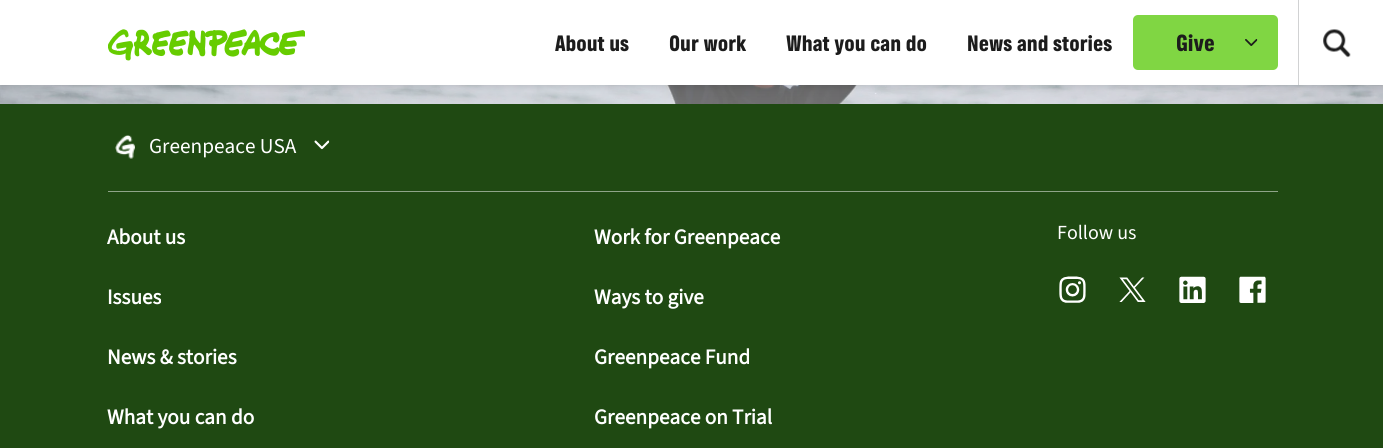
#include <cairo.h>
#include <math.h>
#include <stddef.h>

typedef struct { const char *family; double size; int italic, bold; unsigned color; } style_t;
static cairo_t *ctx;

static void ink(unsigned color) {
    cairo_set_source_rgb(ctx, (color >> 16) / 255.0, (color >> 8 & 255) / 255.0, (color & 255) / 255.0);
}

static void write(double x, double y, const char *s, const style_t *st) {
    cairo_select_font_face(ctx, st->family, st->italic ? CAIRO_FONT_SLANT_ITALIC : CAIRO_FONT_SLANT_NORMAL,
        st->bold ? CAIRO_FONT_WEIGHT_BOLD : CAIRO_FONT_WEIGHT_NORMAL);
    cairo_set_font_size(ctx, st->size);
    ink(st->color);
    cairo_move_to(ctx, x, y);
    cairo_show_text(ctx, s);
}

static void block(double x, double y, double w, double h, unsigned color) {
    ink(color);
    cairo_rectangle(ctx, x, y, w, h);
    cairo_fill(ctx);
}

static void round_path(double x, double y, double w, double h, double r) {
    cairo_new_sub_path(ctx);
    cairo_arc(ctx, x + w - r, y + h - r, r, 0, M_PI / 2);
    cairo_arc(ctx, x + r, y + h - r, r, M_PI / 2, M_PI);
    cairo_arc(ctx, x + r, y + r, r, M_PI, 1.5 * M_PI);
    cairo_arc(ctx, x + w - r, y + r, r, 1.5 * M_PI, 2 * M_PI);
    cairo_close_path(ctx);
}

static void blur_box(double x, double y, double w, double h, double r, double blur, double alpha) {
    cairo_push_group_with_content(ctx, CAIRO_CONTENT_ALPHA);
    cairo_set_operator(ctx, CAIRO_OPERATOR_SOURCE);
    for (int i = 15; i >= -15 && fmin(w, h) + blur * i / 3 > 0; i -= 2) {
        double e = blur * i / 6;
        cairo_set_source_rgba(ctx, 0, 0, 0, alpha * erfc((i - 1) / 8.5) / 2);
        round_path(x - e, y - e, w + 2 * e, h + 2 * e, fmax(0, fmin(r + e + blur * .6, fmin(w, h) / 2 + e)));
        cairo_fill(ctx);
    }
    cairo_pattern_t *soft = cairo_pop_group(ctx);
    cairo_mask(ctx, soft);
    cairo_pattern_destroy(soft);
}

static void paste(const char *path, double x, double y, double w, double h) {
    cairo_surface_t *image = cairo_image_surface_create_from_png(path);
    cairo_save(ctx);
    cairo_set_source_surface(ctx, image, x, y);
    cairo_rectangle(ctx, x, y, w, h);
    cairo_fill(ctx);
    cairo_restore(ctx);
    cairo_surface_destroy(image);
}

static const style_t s1 = {"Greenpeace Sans", 20, 0, 1, 0x1c1c1c};
static const style_t s2 = {"Greenpeace Sans", 21, 0, 1, 0x1c1c1c};
static const style_t s3 = {"Source Sans 3", 21.25, 0, 0, 0xffffff};
static const style_t s4 = {"Source Sans 3", 21.25, 0, 1, 0xffffff};
static const style_t s5 = {"Source Sans 3", 20, 0, 0, 0xffffff};

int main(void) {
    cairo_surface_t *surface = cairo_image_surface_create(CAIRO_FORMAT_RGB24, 1383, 448);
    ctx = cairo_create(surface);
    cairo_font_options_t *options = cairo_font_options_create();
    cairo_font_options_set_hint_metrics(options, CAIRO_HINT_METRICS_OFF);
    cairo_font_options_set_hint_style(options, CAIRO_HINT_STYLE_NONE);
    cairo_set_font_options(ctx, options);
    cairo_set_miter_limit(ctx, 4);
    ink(0xffffff);
    cairo_paint(ctx);
    paste("pic4.png", 0, 85, 1383, 19);
    ink(0x000000);
    blur_box(0, 3, 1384, 85, 0, 2.5, 0.08);
    block(0, 0, 1383, 85, 0xffffff);
    paste("pic1.png", 108, 29, 197, 32);
    write(555, 51, "About us", &s1);
    write(669, 51, "Our work", &s1);
    write(786, 51, "What you can do", &s1);
    write(967, 51, "News and stories", &s1);
    ink(0x80d643);
    round_path(1133, 15, 145, 55, 5);
    cairo_fill(ctx);
    write(1176, 51, "Give", &s2);
    paste("pic2.png", 1245, 39, 13, 7);
    block(1298, 0, 1, 85, 0xd1d2d3);
    paste("pic3.png", 1323, 29, 28, 29);
    block(0, 104, 1383, 344, 0x1f4912);
    block(108, 191, 1170, 1, 0x8fa489);
    paste("pic5.png", 115, 135, 20, 24);
    write(149, 153, "Greenpeace USA", &s3);
    paste("pic6.png", 314, 140, 16, 10);
    write(107, 244, "About us", &s4);
    write(594, 244, "Work for Greenpeace", &s4);
    write(107, 304, "Issues", &s4);
    write(594, 304, "Ways to give", &s4);
    write(107, 364, "News & stories", &s4);
    write(594, 364, "Greenpeace Fund", &s4);
    write(107, 424, "What you can do", &s4);
    write(594, 424, "Greenpeace on Trial", &s4);
    write(1057, 239, "Follow us", &s5);
    paste("pic7.png", 1059, 276, 27, 27);
    paste("pic8.png", 1119, 277, 27, 25);
    paste("pic9.png", 1179, 276, 27, 27);
    paste("pic10.png", 1239, 276, 27, 27);
    cairo_surface_write_to_png(surface, "screenshot.png");
    cairo_font_options_destroy(options);
    cairo_destroy(ctx);
    cairo_surface_destroy(surface);
    return 0;
}
